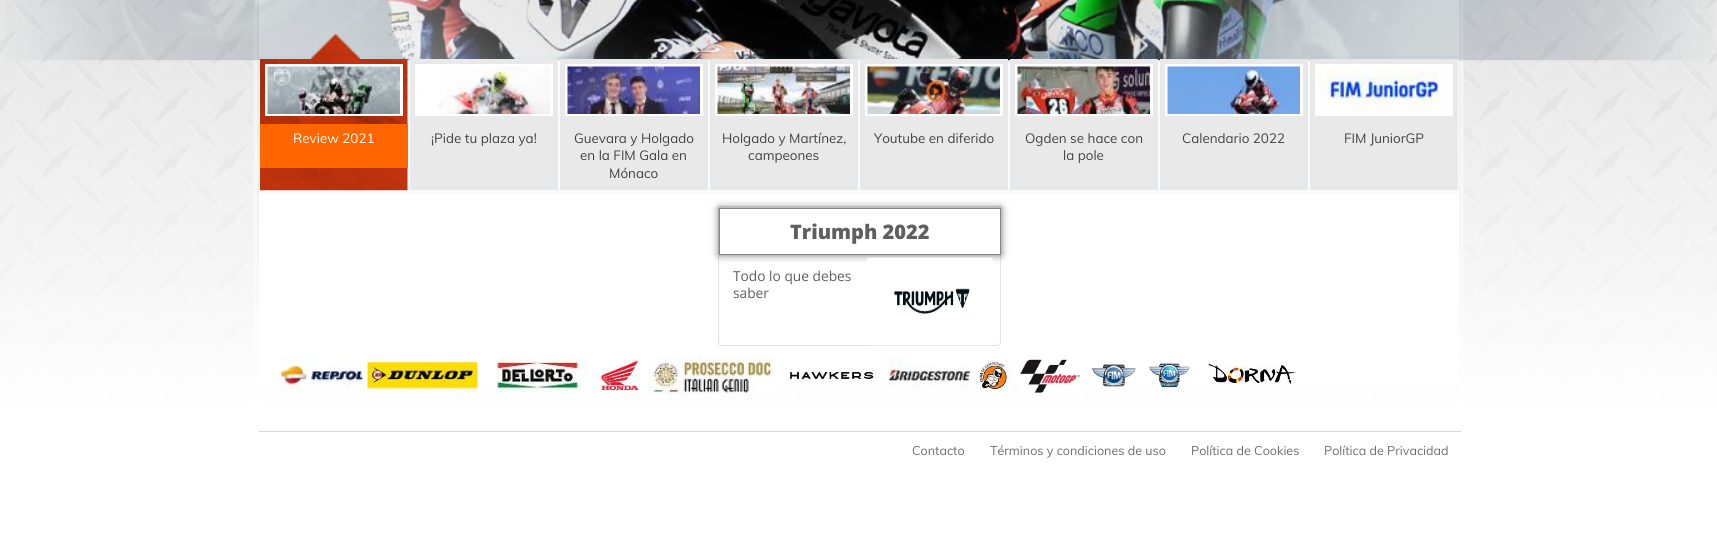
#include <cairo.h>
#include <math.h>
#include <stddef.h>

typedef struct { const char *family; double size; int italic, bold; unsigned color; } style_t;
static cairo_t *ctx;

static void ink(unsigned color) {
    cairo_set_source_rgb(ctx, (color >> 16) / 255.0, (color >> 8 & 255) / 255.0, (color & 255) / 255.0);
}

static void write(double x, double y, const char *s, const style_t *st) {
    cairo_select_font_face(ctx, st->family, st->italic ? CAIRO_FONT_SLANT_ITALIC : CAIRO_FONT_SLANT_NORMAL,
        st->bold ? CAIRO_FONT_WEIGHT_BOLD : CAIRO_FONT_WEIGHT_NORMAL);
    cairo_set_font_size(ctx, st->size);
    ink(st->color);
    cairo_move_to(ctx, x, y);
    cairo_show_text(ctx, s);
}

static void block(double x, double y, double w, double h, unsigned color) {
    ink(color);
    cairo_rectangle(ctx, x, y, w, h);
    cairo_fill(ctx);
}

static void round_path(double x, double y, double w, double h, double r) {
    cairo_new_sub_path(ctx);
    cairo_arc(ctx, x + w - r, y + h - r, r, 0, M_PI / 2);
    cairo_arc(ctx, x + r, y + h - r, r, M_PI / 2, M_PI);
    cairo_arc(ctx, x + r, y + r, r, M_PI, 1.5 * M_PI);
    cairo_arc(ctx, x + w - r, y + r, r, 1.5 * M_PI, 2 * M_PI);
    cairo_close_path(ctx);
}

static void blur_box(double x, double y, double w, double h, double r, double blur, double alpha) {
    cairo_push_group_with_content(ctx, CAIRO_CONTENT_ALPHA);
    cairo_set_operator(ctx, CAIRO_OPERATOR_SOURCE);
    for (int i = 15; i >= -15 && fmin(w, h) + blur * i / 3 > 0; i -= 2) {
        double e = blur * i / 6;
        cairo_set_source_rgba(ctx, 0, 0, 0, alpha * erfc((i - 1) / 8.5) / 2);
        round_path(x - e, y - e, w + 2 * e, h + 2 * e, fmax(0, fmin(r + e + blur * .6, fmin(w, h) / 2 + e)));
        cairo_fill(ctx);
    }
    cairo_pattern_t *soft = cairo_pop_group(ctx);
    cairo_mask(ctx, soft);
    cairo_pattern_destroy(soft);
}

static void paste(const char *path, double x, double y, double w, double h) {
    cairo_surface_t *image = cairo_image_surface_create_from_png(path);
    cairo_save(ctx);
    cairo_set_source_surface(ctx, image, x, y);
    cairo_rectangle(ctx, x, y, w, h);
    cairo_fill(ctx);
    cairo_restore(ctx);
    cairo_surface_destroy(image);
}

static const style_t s1 = {"Muli", 13.4, 0, 0, 0xffffff};
static const style_t s2 = {"Muli", 13.4, 0, 0, 0x434345};
static const style_t s3 = {"Open Sans ExtraBold", 20, 0, 0, 0x5f5f5f};
static const style_t s4 = {"Open Sans", 13.75, 0, 0, 0x5f5f5f};
static const style_t s5 = {"Muli", 12.5, 0, 0, 0x6e6e6e};

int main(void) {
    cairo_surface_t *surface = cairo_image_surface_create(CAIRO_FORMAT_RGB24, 1717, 537);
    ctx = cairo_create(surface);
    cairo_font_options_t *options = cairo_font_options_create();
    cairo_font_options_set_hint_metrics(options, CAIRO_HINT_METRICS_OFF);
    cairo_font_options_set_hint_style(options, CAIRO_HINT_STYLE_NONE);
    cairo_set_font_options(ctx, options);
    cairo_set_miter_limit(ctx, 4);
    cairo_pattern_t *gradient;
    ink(0xffffff);
    cairo_paint(ctx);
    paste("pic1.png", 0, 0, 1717, 411);
    paste("pic3.png", 252, 0, 6, 411);
    paste("pic14.png", 1459, 0, 5, 411);
    gradient = cairo_pattern_create_linear(859, -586, 859, 414);
    cairo_pattern_add_color_stop_rgba(gradient, 0.45, 1, 1, 1, 0);
    cairo_pattern_add_color_stop_rgba(gradient, 1, 1, 1, 1, 1);
    cairo_set_source(ctx, gradient);
    cairo_pattern_destroy(gradient);
    cairo_rectangle(ctx, 0, 0, 1717, 411);
    cairo_fill(ctx);
    block(259, 0, 1200, 384, 0xffffff);
    paste("pic2.png", 5, 0, 1708, 61);
    cairo_set_source_rgba(ctx, 0.016, 0.584, 0.792, 0.03);
    cairo_rectangle(ctx, 259, 56, 1200, 138);
    cairo_fill(ctx);
    paste("pic4.png", 311, 34, 49, 25);
    paste("pic5.png", 260, 59, 148, 132);
    cairo_rectangle(ctx, 266.5, 65.5, 135, 49);
    ink(0xffffff);
    cairo_set_line_width(ctx, 3);
    cairo_stroke(ctx);
    paste("pic6.png", 267, 66, 133, 48);
    block(260, 124, 148, 44, 0xff6600);
    write(293, 143, "Review 2021", &s1);
    block(410, 59, 148, 131, 0xe9e9ea);
    cairo_rectangle(ctx, 416.5, 65.5, 135, 49);
    ink(0xffffff);
    cairo_stroke(ctx);
    paste("pic7.png", 418, 66, 132, 48);
    write(431, 143, "¡Pide tu plaza ya!", &s2);
    block(560, 59, 148, 131, 0xe9e9ea);
    cairo_rectangle(ctx, 566.5, 65.5, 135, 49);
    ink(0xffffff);
    cairo_stroke(ctx);
    paste("pic8.png", 567, 66, 133, 48);
    write(574, 143, "Guevara y Holgado", &s2);
    write(580, 160, "en la FIM Gala en", &s2);
    write(609, 178, "Mónaco", &s2);
    block(710, 59, 148, 131, 0xe9e9ea);
    cairo_rectangle(ctx, 716.5, 65.5, 135, 49);
    ink(0xffffff);
    cairo_stroke(ctx);
    paste("pic9.png", 717, 66, 133, 48);
    write(722, 143, "Holgado y Martínez,", &s2);
    write(748, 160, "campeones", &s2);
    block(860, 59, 148, 131, 0xe9e9ea);
    cairo_rectangle(ctx, 866.5, 65.5, 135, 49);
    ink(0xffffff);
    cairo_stroke(ctx);
    paste("pic10.png", 867, 66, 133, 48);
    write(874, 143, "Youtube en diferido", &s2);
    block(1010, 59, 148, 131, 0xe9e9ea);
    cairo_rectangle(ctx, 1016.5, 65.5, 135, 49);
    ink(0xffffff);
    cairo_stroke(ctx);
    paste("pic11.png", 1017, 66, 133, 48);
    write(1025, 143, "Ogden se hace con", &s2);
    write(1063, 160, "la pole", &s2);
    block(1160, 59, 148, 131, 0xe9e9ea);
    cairo_rectangle(ctx, 1166.5, 65.5, 135, 49);
    ink(0xffffff);
    cairo_stroke(ctx);
    paste("pic12.png", 1167, 66, 133, 48);
    write(1182, 143, "Calendario 2022", &s2);
    block(1310, 59, 148, 131, 0xe9e9ea);
    cairo_rectangle(ctx, 1316.5, 65.5, 135, 49);
    ink(0xffffff);
    cairo_stroke(ctx);
    paste("pic13.png", 1317, 66, 133, 47);
    write(1344, 143, "FIM JuniorGP", &s2);
    cairo_new_path(ctx);
    cairo_move_to(ctx, 718.5, 206.5);
    cairo_line_to(ctx, 1000.5, 206.5);
    cairo_line_to(ctx, 1000.5, 342);
    cairo_curve_to(ctx, 1000.5, 344, 999, 345.5, 997, 345.5);
    cairo_line_to(ctx, 722, 345.5);
    cairo_curve_to(ctx, 720, 345.5, 718.5, 344, 718.5, 342);
    cairo_close_path(ctx);
    ink(0xe2e2e2);
    cairo_set_line_width(ctx, 1);
    cairo_stroke(ctx);
    cairo_save(ctx);
    cairo_set_fill_rule(ctx, CAIRO_FILL_RULE_EVEN_ODD);
    cairo_new_path(ctx);
    cairo_move_to(ctx, 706, 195);
    cairo_line_to(ctx, 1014, 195);
    cairo_line_to(ctx, 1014, 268);
    cairo_line_to(ctx, 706, 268);
    cairo_close_path(ctx);
    cairo_move_to(ctx, 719, 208);
    cairo_line_to(ctx, 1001, 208);
    cairo_line_to(ctx, 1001, 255);
    cairo_line_to(ctx, 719, 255);
    cairo_close_path(ctx);
    cairo_clip(ctx);
    ink(0x6e6e6e);
    blur_box(719, 208, 282, 47, 0, 4, 1);
    cairo_restore(ctx);
    cairo_rectangle(ctx, 719.5, 208.5, 281, 46);
    ink(0x858687);
    cairo_stroke(ctx);
    write(790, 239, "Triumph 2022", &s3);
    write(733, 281, "Todo lo que debes", &s4);
    write(733, 298, "saber", &s4);
    paste("pic15.png", 867, 257, 126, 89);
    paste("pic16.png", 281, 356, 82, 38);
    paste("pic17.png", 367, 356, 111, 37);
    paste("pic18.png", 496, 356, 92, 38);
    paste("pic19.png", 601, 360, 38, 31);
    paste("pic20.png", 647, 356, 127, 38);
    paste("pic21.png", 790, 371, 84, 8);
    paste("pic22.png", 888, 356, 82, 31);
    paste("pic23.png", 979, 361, 33, 33);
    paste("pic24.png", 1020, 359, 60, 34);
    paste("pic25.png", 1092, 364, 44, 23);
    paste("pic26.png", 1149, 363, 41, 25);
    paste("pic27.png", 1208, 361, 88, 24);
    block(259, 431, 1202, 1, 0xd6d6d6);
    write(912, 455, "Contacto", &s5);
    write(990, 455, "Términos y condiciones de uso", &s5);
    write(1191, 455, "Política de Cookies", &s5);
    write(1324, 455, "Política de Privacidad", &s5);
    cairo_surface_write_to_png(surface, "screenshot.png");
    cairo_font_options_destroy(options);
    cairo_destroy(ctx);
    cairo_surface_destroy(surface);
    return 0;
}
